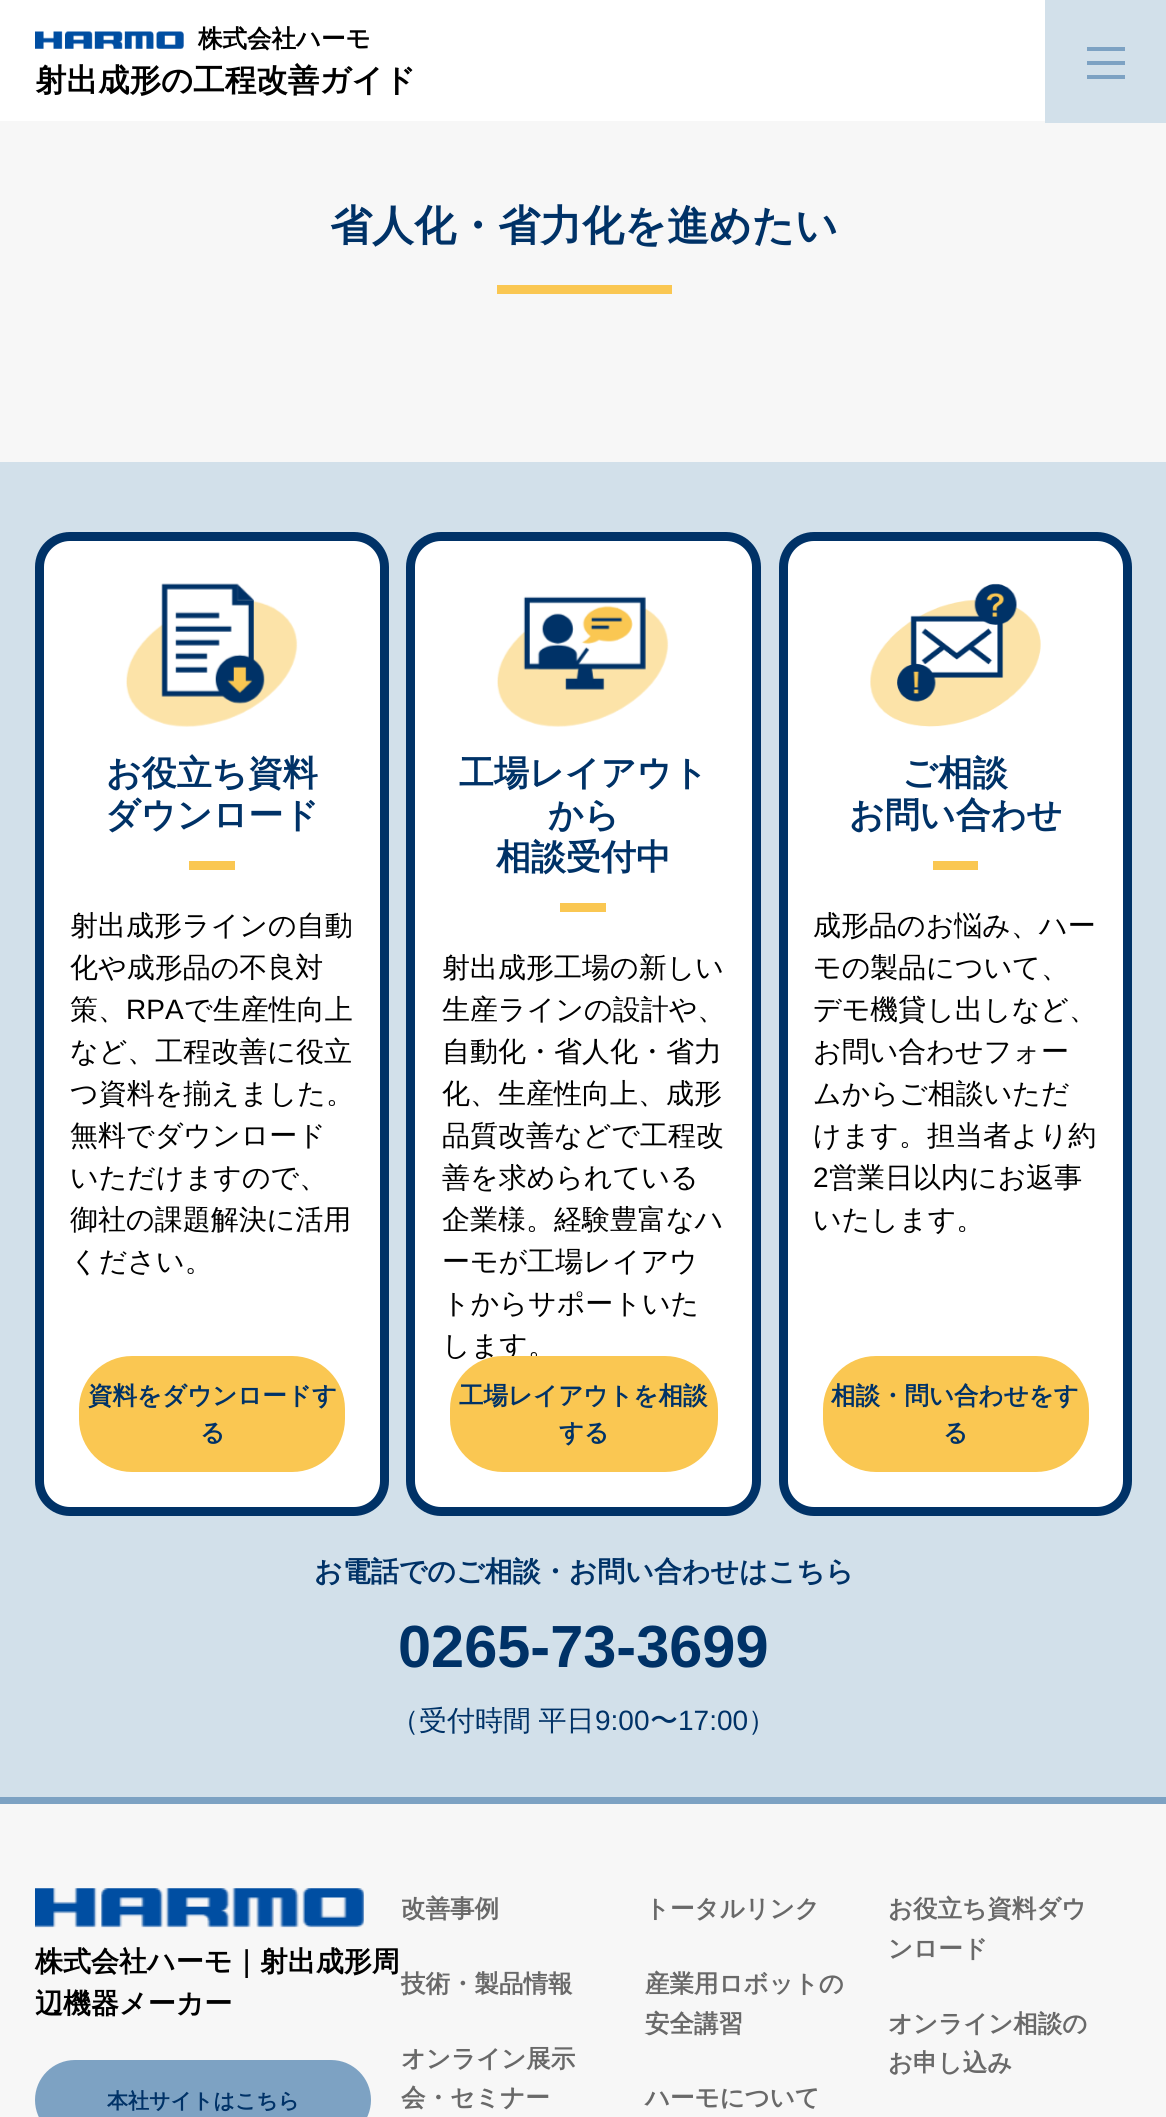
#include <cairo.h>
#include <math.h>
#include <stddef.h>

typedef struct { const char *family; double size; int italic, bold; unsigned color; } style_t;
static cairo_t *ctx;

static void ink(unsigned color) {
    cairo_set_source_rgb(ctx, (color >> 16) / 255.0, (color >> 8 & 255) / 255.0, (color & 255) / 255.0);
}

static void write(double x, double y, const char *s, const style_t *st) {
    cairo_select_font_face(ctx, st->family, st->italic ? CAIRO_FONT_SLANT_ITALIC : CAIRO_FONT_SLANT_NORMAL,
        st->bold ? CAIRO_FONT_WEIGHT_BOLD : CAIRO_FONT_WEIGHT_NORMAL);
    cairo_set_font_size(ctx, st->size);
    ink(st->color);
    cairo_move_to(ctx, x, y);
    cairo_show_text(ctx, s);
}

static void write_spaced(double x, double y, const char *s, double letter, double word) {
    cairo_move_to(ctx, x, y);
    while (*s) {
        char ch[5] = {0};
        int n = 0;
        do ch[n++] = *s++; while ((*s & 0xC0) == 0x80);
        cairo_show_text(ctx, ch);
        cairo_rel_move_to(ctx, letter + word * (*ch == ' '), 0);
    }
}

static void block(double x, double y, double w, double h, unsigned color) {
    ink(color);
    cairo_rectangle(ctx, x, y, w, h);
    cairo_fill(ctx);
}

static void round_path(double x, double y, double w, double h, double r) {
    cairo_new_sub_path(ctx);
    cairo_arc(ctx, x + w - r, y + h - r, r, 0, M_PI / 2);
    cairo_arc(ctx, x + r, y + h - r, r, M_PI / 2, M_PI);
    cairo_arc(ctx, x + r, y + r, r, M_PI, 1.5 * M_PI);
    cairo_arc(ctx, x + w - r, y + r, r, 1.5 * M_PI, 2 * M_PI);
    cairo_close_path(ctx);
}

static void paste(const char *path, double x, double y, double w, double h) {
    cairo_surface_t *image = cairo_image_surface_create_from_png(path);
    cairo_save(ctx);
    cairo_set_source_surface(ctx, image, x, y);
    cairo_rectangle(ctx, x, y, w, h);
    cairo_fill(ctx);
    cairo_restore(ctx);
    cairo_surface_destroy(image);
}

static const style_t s1 = {"WenQuanYi Zen Hei", 24.5, 0, 1, 0x000000};
static const style_t s2 = {"WenQuanYi Zen Hei", 31.5, 0, 1, 0x000000};
static const style_t s3 = {"WenQuanYi Zen Hei", 42, 0, 1, 0x003267};
static const style_t s4 = {"WenQuanYi Zen Hei", 35, 0, 1, 0x003267};
static const style_t s5 = {"WenQuanYi Zen Hei Medium", 28, 0, 0, 0x000000};
static const style_t s6 = {"Liberation Sans", 28, 0, 0, 0x000000};
static const style_t s7 = {"WenQuanYi Zen Hei", 24.5, 0, 1, 0x003267};
static const style_t s8 = {"WenQuanYi Zen Hei", 28, 0, 1, 0x003267};
static const style_t s9 = {"Liberation Sans", 59.5, 0, 1, 0x003267};
static const style_t s10 = {"Liberation Sans", 28, 0, 0, 0x003267};
static const style_t s11 = {"WenQuanYi Zen Hei Medium", 28, 0, 0, 0x003267};
static const style_t s12 = {"WenQuanYi Zen Hei", 28, 0, 1, 0x000000};
static const style_t s13 = {"WenQuanYi Zen Hei", 21, 0, 1, 0x003267};
static const style_t s14 = {"WenQuanYi Zen Hei", 24.5, 0, 1, 0x696969};

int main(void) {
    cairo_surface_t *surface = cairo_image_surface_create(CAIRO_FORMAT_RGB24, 1166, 2117);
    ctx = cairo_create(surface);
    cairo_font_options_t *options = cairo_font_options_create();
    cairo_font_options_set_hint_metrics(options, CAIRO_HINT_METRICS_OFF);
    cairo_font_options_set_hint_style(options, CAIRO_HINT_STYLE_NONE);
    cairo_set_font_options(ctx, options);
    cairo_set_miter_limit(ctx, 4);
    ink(0xffffff);
    cairo_paint(ctx);
    block(0, 121, 1045, 2, 0xf7f7f7);
    paste("pic1.png", 35, 31, 149, 18);
    write(198, 47, "株式会社ハーモ", &s1);
    write(35, 91, "射出成形の工程改善ガイド", &s2);
    block(1045, 0, 121, 123, 0xd2e0ea);
    block(1087, 47, 38, 4, 0x7da2c3);
    block(1087, 61, 38, 4, 0x7da2c3);
    block(1087, 75, 38, 4, 0x7da2c3);
    block(0, 123, 1166, 339, 0xf7f7f7);
    write(330, 240, "省人化・省力化を進めたい", &s3);
    block(497, 285, 175, 9, 0xfac752);
    block(0, 462, 1166, 1335, 0xd2e0ea);
    ink(0xffffff);
    round_path(39.5, 536.5, 345, 975, 30.5);
    cairo_fill_preserve(ctx);
    ink(0x003267);
    cairo_set_line_width(ctx, 9);
    cairo_stroke(ctx);
    paste("pic2.png", 126, 583, 172, 144);
    write(106, 785, "お役立ち資料", &s4);
    write(105, 827, "ダウンロード", &s4);
    block(189, 861, 46, 9, 0xfac752);
    write(70, 935, "射出成形ラインの自動", &s5);
    write(70, 977, "化や成形品の不良対", &s5);
    write(70, 1019, "策、", &s5);
    write(126, 1019, "RPA", &s6);
    write(184, 1019, "で生産性向上", &s5);
    write(70, 1061, "など、工程改善に役立", &s5);
    write(70, 1103, "つ資料を揃えました。", &s5);
    write(70, 1145, "無料でダウンロード", &s5);
    write(70, 1187, "いただけますので、", &s5);
    write(70, 1229, "御社の課題解決に活用", &s5);
    write(70, 1271, "ください。", &s5);
    ink(0xfac752);
    round_path(79, 1356, 266, 116, 53);
    cairo_fill(ctx);
    write(88, 1404, "資料をダウンロードす", &s7);
    write(200, 1441, "る", &s7);
    ink(0xffffff);
    round_path(410.5, 536.5, 346, 975, 30.5);
    cairo_fill_preserve(ctx);
    ink(0x003267);
    cairo_stroke(ctx);
    paste("pic3.png", 497, 596, 172, 131);
    write(459, 785, "工場レイアウト", &s4);
    write(548, 827, "から", &s4);
    write(496, 869, "相談受付中", &s4);
    block(560, 903, 46, 9, 0xfac752);
    write(442, 977, "射出成形工場の新しい", &s5);
    write(442, 1019, "生産ラインの設計や、", &s5);
    write(442, 1061, "自動化・省人化・省力", &s5);
    write(442, 1103, "化、生産性向上、成形", &s5);
    write(442, 1145, "品質改善などで工程改", &s5);
    write(442, 1187, "善を求められている", &s5);
    write(442, 1229, "企業様。経験豊富なハ", &s5);
    write(442, 1271, "ーモが工場レイアウ", &s5);
    write(442, 1313, "トからサポートいた", &s5);
    write(442, 1355, "します。", &s5);
    ink(0xfac752);
    round_path(450, 1356, 268, 116, 53);
    cairo_fill(ctx);
    write(459, 1404, "工場レイアウトを相談", &s7);
    write(559, 1441, "する", &s7);
    ink(0xffffff);
    round_path(783.5, 536.5, 344, 975, 30.5);
    cairo_fill_preserve(ctx);
    ink(0x003267);
    cairo_stroke(ctx);
    paste("pic4.png", 870, 583, 171, 144);
    write(902, 785, "ご相談", &s4);
    write(849, 827, "お問い合わせ", &s4);
    block(933, 861, 45, 9, 0xfac752);
    write(813, 935, "成形品のお悩み、ハー", &s5);
    write(813, 977, "モの製品について、", &s5);
    write(813, 1019, "デモ機貸し出しなど、", &s5);
    write(813, 1061, "お問い合わせフォー", &s5);
    write(813, 1103, "ムからご相談いただ", &s5);
    write(813, 1145, "けます。担当者より約", &s5);
    write(813, 1187, "2", &s6);
    write(829, 1187, "営業日以内にお返事", &s5);
    write(813, 1229, "いたします。", &s5);
    ink(0xfac752);
    round_path(823, 1356, 266, 116, 53);
    cairo_fill(ctx);
    write(831, 1404, "相談・問い合わせをす", &s7);
    write(943, 1441, "る", &s7);
    write(314, 1581, "お電話でのご相談・お問い合わせはこちら", &s8);
    write(398, 1667, "0265-73-3699", &s9);
    cairo_select_font_face(ctx, "WenQuanYi Zen Hei Medium", CAIRO_FONT_SLANT_NORMAL, CAIRO_FONT_WEIGHT_NORMAL);
    cairo_set_font_size(ctx, 28);
    write_spaced(391, 1730, "（受付時間 平日", 0, -1);
    write(595, 1730, "9:00", &s10);
    write(650, 1730, "〜", &s11);
    write(678, 1730, "17:00", &s10);
    write(748, 1730, "）", &s11);
    block(0, 1804, 1166, 313, 0xf7f7f7);
    block(0, 1797, 1166, 7, 0x7da2c3);
    paste("pic5.png", 35, 1888, 329, 40);
    write(35, 1971, "株式会社ハーモ｜射出成形周", &s12);
    write(35, 2013, "辺機器メーカー", &s12);
    ink(0x7da2c3);
    round_path(35, 2060, 336, 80, 40);
    cairo_fill(ctx);
    write(107, 2108, "本社サイトはこちら", &s13);
    write(401, 1917, "改善事例", &s14);
    write(401, 1992, "技術・製品情報", &s14);
    write(401, 2067, "オンライン展示", &s14);
    write(401, 2106, "会・セミナー", &s14);
    write(645, 1917, "トータルリンク", &s14);
    write(645, 1992, "産業用ロボットの", &s14);
    write(645, 2032, "安全講習", &s14);
    write(645, 2106, "ハーモについて", &s14);
    write(888, 1917, "お役立ち資料ダウ", &s14);
    write(888, 1957, "ンロード", &s14);
    write(888, 2032, "オンライン相談の", &s14);
    write(888, 2071, "お申し込み", &s14);
    cairo_surface_write_to_png(surface, "screenshot.png");
    cairo_font_options_destroy(options);
    cairo_destroy(ctx);
    cairo_surface_destroy(surface);
    return 0;
}
